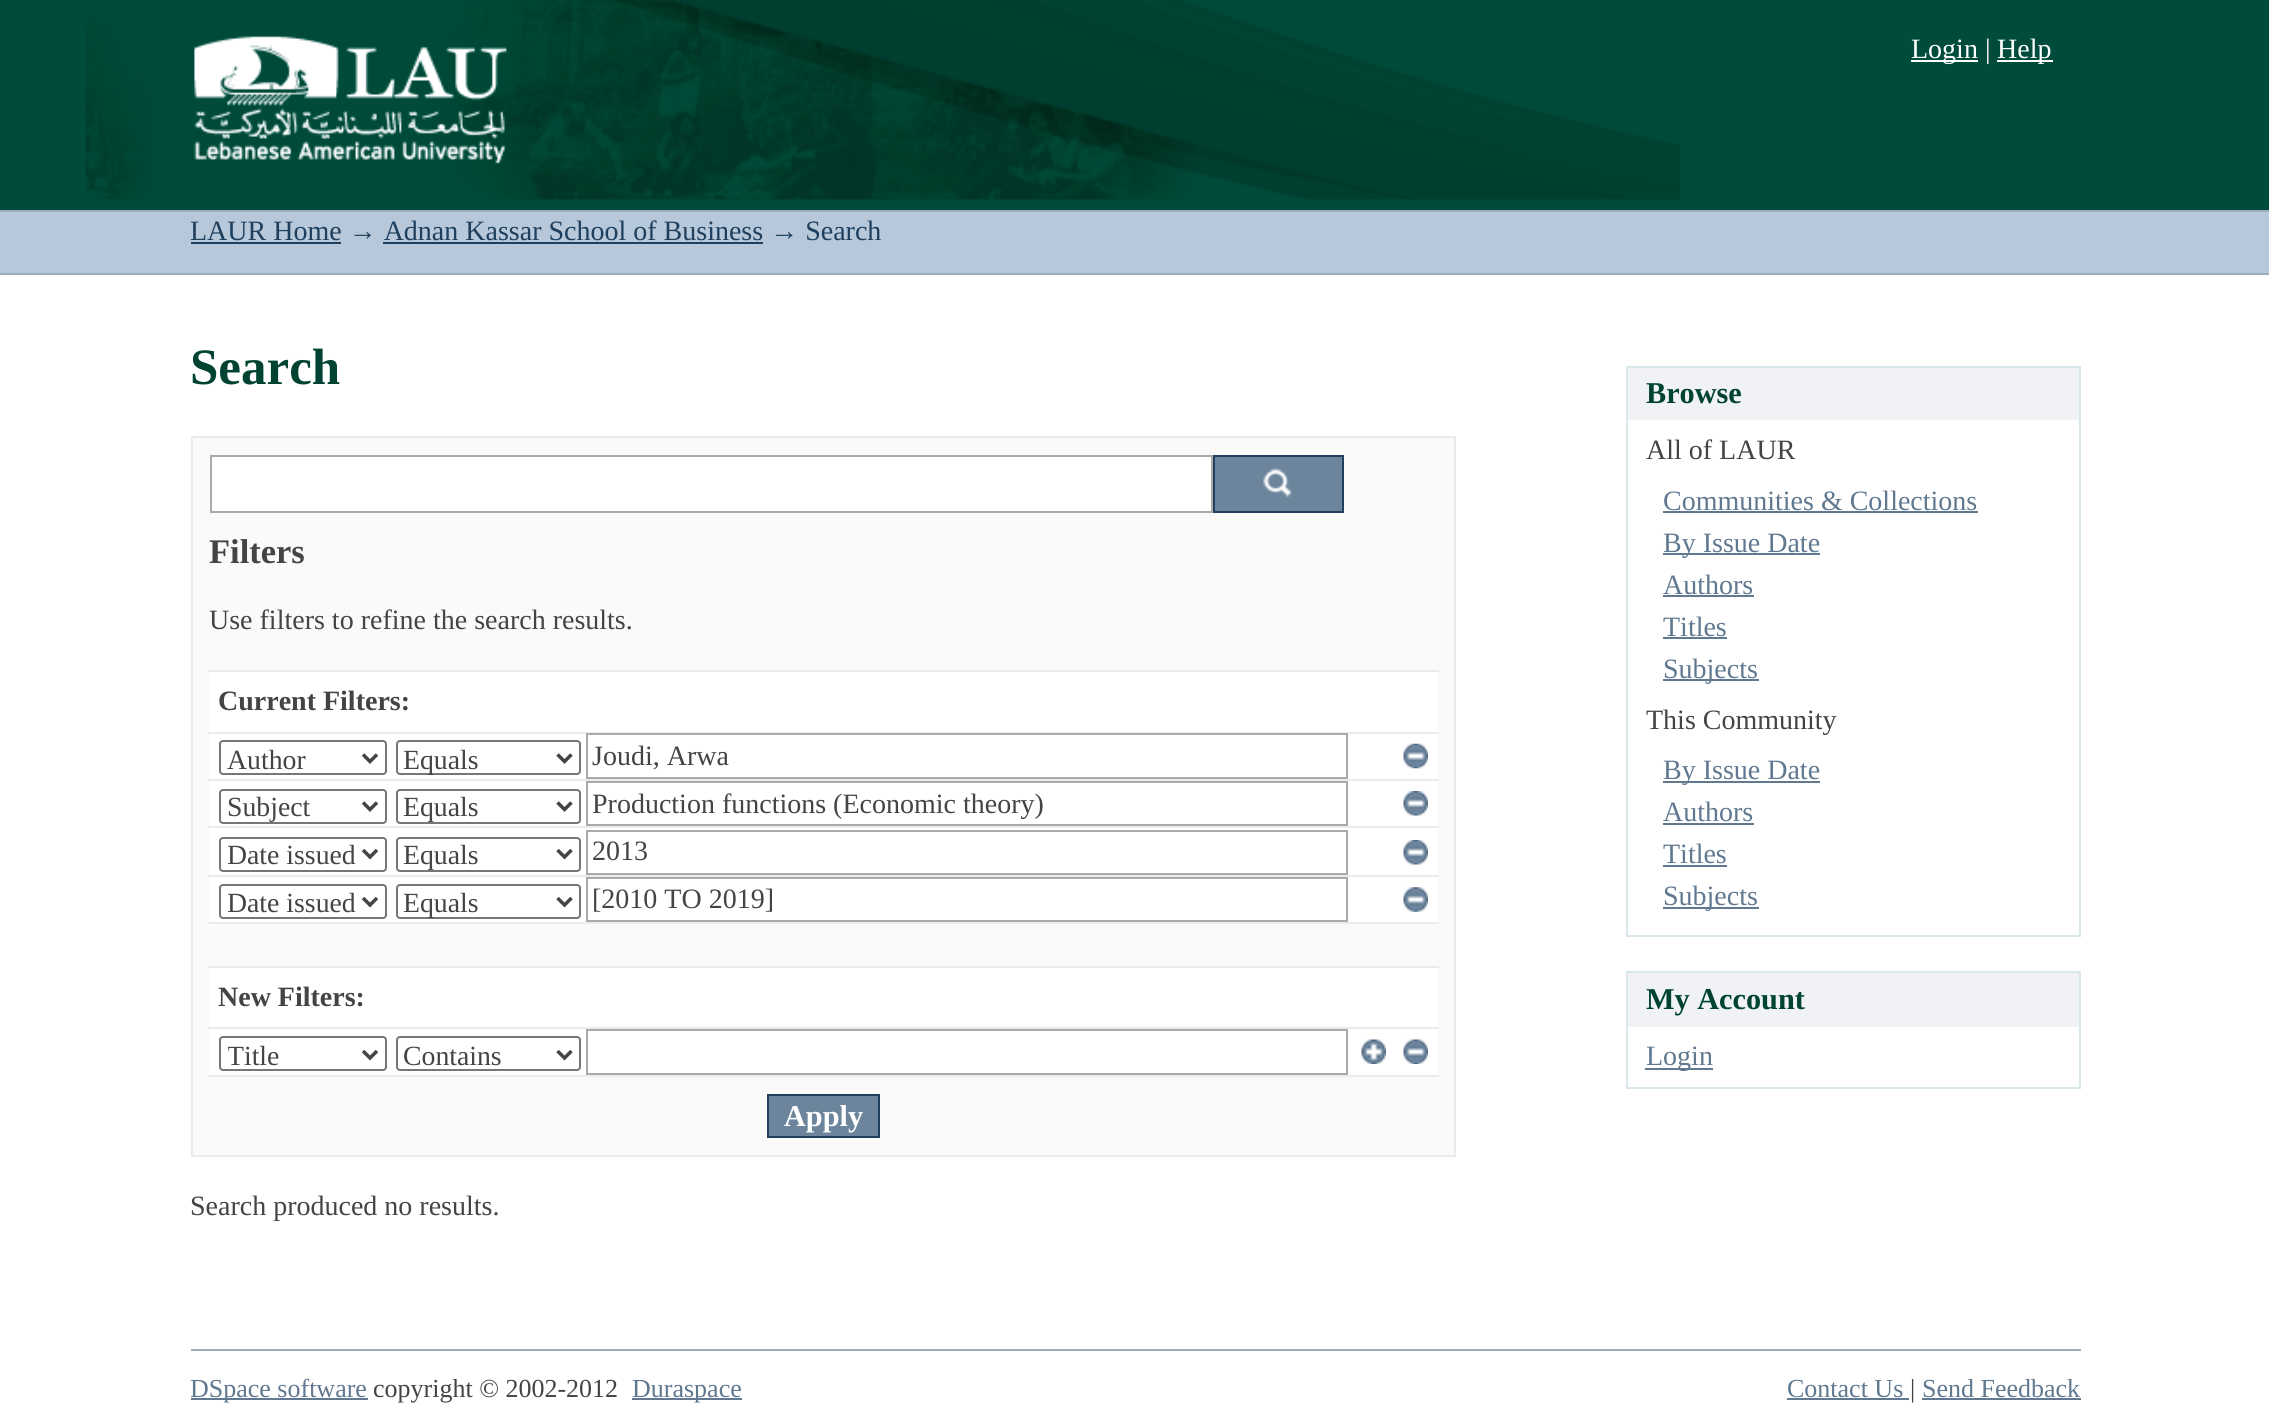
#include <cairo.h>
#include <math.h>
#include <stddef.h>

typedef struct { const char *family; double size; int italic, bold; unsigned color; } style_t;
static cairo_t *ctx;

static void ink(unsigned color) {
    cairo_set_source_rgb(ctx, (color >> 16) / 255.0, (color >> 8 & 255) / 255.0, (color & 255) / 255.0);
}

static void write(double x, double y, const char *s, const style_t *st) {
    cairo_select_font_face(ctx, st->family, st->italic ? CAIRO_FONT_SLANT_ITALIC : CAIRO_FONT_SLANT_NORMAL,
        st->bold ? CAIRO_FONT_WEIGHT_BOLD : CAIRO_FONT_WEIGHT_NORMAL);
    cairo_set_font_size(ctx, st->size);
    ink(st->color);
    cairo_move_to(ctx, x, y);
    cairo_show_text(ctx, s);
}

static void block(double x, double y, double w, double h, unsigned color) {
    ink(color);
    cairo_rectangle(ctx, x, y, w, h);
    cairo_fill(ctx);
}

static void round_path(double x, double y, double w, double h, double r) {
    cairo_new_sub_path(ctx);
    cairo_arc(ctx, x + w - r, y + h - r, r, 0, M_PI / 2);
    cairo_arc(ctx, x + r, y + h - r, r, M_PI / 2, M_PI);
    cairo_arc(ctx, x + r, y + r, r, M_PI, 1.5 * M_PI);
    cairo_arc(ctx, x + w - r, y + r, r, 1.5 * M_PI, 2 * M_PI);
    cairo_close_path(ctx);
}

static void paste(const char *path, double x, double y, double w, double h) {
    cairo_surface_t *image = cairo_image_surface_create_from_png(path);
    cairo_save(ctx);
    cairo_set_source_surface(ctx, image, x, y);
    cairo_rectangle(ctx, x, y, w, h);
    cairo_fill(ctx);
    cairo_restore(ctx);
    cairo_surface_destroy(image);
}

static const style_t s1 = {"Liberation Serif", 28, 0, 0, 0xffffff};
static const style_t s2 = {"Liberation Serif", 28, 0, 0, 0x1f3f5e};
static const style_t s3 = {"Liberation Serif", 51, 0, 1, 0x004332};
static const style_t s4 = {"Liberation Serif", 34.5, 0, 1, 0x444444};
static const style_t s5 = {"Liberation Serif", 28, 0, 0, 0x444444};
static const style_t s6 = {"Liberation Serif", 28, 0, 1, 0x444444};
static const style_t s7 = {"Liberation Serif", 27.75, 0, 0, 0x444444};
static const style_t s8 = {"Liberation Serif", 30.25, 0, 1, 0xffffff};
static const style_t s9 = {"Liberation Serif", 30.25, 0, 1, 0x004332};
static const style_t s10 = {"Liberation Serif", 28, 0, 0, 0x607890};
static const style_t s11 = {"Liberation Serif", 26, 0, 0, 0x607890};
static const style_t s12 = {"Liberation Serif", 26, 0, 0, 0x444444};

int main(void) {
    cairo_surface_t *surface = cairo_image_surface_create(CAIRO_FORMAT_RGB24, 2269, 1415);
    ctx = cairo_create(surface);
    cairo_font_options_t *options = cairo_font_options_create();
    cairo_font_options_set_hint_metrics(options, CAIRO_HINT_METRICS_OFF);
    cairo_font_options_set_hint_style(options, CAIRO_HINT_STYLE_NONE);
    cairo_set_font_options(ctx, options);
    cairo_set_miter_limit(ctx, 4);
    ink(0xffffff);
    cairo_paint(ctx);
    block(0, 0, 2269, 210, 0x004c3c);
    paste("pic1.png", 85, 0, 1595, 200);
    block(1911, 60, 67, 2, 0xffffff);
    write(1911, 58, "Login |", &s1);
    block(1997, 60, 56, 2, 0xffffff);
    write(1997, 58, "Help", &s1);
    block(0, 212, 2269, 61, 0xb6c8d9);
    block(0, 210, 2269, 2, 0x9cacba);
    block(0, 273, 2269, 2, 0x9cacba);
    write(190, 240, "LAUR Home → Adnan Kassar School of Business → Search", &s2);
    block(191, 242, 150, 2, 0x1f3f5e);
    block(383, 242, 380, 2, 0x1f3f5e);
    write(190, 384, "Search", &s3);
    ink(0xfafafa);
    cairo_rectangle(ctx, 192, 437, 1263, 719);
    cairo_fill_preserve(ctx);
    ink(0xebebeb);
    cairo_stroke(ctx);
    ink(0xffffff);
    cairo_rectangle(ctx, 211, 456, 1001, 56);
    cairo_fill_preserve(ctx);
    ink(0xaaaaaa);
    cairo_stroke(ctx);
    block(1215, 457, 127, 54, 0x6d859c);
    paste("pic2.png", 1263, 468, 29, 30);
    cairo_rectangle(ctx, 1214, 456, 129, 56);
    ink(0x1f3f5e);
    cairo_stroke(ctx);
    write(209, 563, "Filters", &s4);
    write(209, 629, "Use filters to refine the search results.", &s5);
    block(210, 672, 1227, 403, 0xffffff);
    block(208, 670, 1231, 2, 0xebebeb);
    write(218, 710, "Current Filters:", &s6);
    block(208, 732, 1231, 2, 0xebebeb);
    round_path(220, 741, 166, 33, 3);
    ink(0x767676);
    cairo_stroke(ctx);
    cairo_new_path(ctx);
    cairo_move_to(ctx, 363, 754.5);
    cairo_line_to(ctx, 370, 761.5);
    cairo_line_to(ctx, 377, 754.5);
    ink(0x444444);
    cairo_set_line_width(ctx, 3.5);
    cairo_stroke(ctx);
    write(227, 769, "Author", &s7);
    round_path(397, 741, 183, 33, 3);
    ink(0x767676);
    cairo_set_line_width(ctx, 2);
    cairo_stroke(ctx);
    cairo_new_path(ctx);
    cairo_move_to(ctx, 557.5, 754.5);
    cairo_line_to(ctx, 564.5, 761.5);
    cairo_line_to(ctx, 571.5, 754.5);
    ink(0x444444);
    cairo_set_line_width(ctx, 3.5);
    cairo_stroke(ctx);
    write(403, 769, "Equals", &s7);
    cairo_rectangle(ctx, 587, 734, 760, 44);
    ink(0xaaaaaa);
    cairo_set_line_width(ctx, 2);
    cairo_stroke(ctx);
    write(592, 765, "Joudi, Arwa", &s5);
    paste("pic3.png", 1403, 743, 25, 26);
    block(208, 779, 1231, 2, 0xebebeb);
    round_path(220, 790, 166, 33, 3);
    ink(0x767676);
    cairo_stroke(ctx);
    cairo_new_path(ctx);
    cairo_move_to(ctx, 363, 802.5);
    cairo_line_to(ctx, 370, 809.5);
    cairo_line_to(ctx, 377, 802.5);
    ink(0x444444);
    cairo_set_line_width(ctx, 3.5);
    cairo_stroke(ctx);
    write(227, 816, "Subject", &s7);
    round_path(397, 790, 183, 33, 3);
    ink(0x767676);
    cairo_set_line_width(ctx, 2);
    cairo_stroke(ctx);
    cairo_new_path(ctx);
    cairo_move_to(ctx, 557.5, 802.5);
    cairo_line_to(ctx, 564.5, 809.5);
    cairo_line_to(ctx, 571.5, 802.5);
    ink(0x444444);
    cairo_set_line_width(ctx, 3.5);
    cairo_stroke(ctx);
    write(403, 816, "Equals", &s7);
    cairo_rectangle(ctx, 587, 782, 760, 43);
    ink(0xaaaaaa);
    cairo_set_line_width(ctx, 2);
    cairo_stroke(ctx);
    write(592, 813, "Production functions (Economic theory)", &s5);
    paste("pic4.png", 1403, 791, 25, 25);
    block(208, 826, 1231, 2, 0xebebeb);
    round_path(220, 838, 166, 33, 3);
    ink(0x767676);
    cairo_stroke(ctx);
    cairo_new_path(ctx);
    cairo_move_to(ctx, 363, 850);
    cairo_line_to(ctx, 370, 857);
    cairo_line_to(ctx, 377, 850);
    ink(0x444444);
    cairo_set_line_width(ctx, 3.5);
    cairo_stroke(ctx);
    cairo_save(ctx);
    cairo_rectangle(ctx, 228, 838, 129, 34);
    cairo_clip(ctx);
    write(227, 864, "Date issued", &s7);
    cairo_restore(ctx);
    round_path(397, 838, 183, 33, 3);
    ink(0x767676);
    cairo_set_line_width(ctx, 2);
    cairo_stroke(ctx);
    cairo_new_path(ctx);
    cairo_move_to(ctx, 557.5, 850);
    cairo_line_to(ctx, 564.5, 857);
    cairo_line_to(ctx, 571.5, 850);
    ink(0x444444);
    cairo_set_line_width(ctx, 3.5);
    cairo_stroke(ctx);
    write(403, 864, "Equals", &s7);
    cairo_rectangle(ctx, 587, 831, 760, 43);
    ink(0xaaaaaa);
    cairo_set_line_width(ctx, 2);
    cairo_stroke(ctx);
    write(592, 860, "2013", &s5);
    paste("pic4.png", 1403, 840, 25, 25);
    block(208, 875, 1231, 2, 0xebebeb);
    round_path(220, 885, 166, 33, 3);
    ink(0x767676);
    cairo_stroke(ctx);
    cairo_new_path(ctx);
    cairo_move_to(ctx, 363, 898);
    cairo_line_to(ctx, 370, 905);
    cairo_line_to(ctx, 377, 898);
    ink(0x444444);
    cairo_set_line_width(ctx, 3.5);
    cairo_stroke(ctx);
    cairo_save(ctx);
    cairo_rectangle(ctx, 228, 886, 129, 33);
    cairo_clip(ctx);
    write(227, 912, "Date issued", &s7);
    cairo_restore(ctx);
    round_path(397, 885, 183, 33, 3);
    ink(0x767676);
    cairo_set_line_width(ctx, 2);
    cairo_stroke(ctx);
    cairo_new_path(ctx);
    cairo_move_to(ctx, 557.5, 898);
    cairo_line_to(ctx, 564.5, 905);
    cairo_line_to(ctx, 571.5, 898);
    ink(0x444444);
    cairo_set_line_width(ctx, 3.5);
    cairo_stroke(ctx);
    write(403, 912, "Equals", &s7);
    cairo_rectangle(ctx, 587, 878, 760, 43);
    ink(0xaaaaaa);
    cairo_set_line_width(ctx, 2);
    cairo_stroke(ctx);
    write(592, 908, "[2010 TO 2019]", &s5);
    paste("pic5.png", 1403, 887, 25, 25);
    block(210, 924, 1227, 42, 0xfafafa);
    block(208, 922, 1231, 2, 0xebebeb);
    block(208, 966, 1231, 2, 0xebebeb);
    write(218, 1006, "New Filters:", &s6);
    block(208, 1027, 1231, 2, 0xebebeb);
    round_path(220, 1037, 166, 33, 3);
    ink(0x767676);
    cairo_stroke(ctx);
    cairo_new_path(ctx);
    cairo_move_to(ctx, 363, 1051);
    cairo_line_to(ctx, 370, 1058);
    cairo_line_to(ctx, 377, 1051);
    ink(0x444444);
    cairo_set_line_width(ctx, 3.5);
    cairo_stroke(ctx);
    cairo_save(ctx);
    cairo_rectangle(ctx, 228, 1038, 129, 33);
    cairo_clip(ctx);
    write(227, 1065, "Title", &s7);
    cairo_restore(ctx);
    round_path(397, 1037, 183, 33, 3);
    ink(0x767676);
    cairo_set_line_width(ctx, 2);
    cairo_stroke(ctx);
    cairo_new_path(ctx);
    cairo_move_to(ctx, 557.5, 1051);
    cairo_line_to(ctx, 564.5, 1058);
    cairo_line_to(ctx, 571.5, 1051);
    ink(0x444444);
    cairo_set_line_width(ctx, 3.5);
    cairo_stroke(ctx);
    write(403, 1065, "Contains", &s7);
    cairo_rectangle(ctx, 587, 1030, 760, 44);
    ink(0xaaaaaa);
    cairo_set_line_width(ctx, 2);
    cairo_stroke(ctx);
    paste("pic6.png", 1361, 1039, 25, 25);
    paste("pic7.png", 1403, 1039, 25, 25);
    block(208, 1075, 1231, 2, 0xebebeb);
    ink(0x6d859c);
    cairo_rectangle(ctx, 768, 1095, 111, 42);
    cairo_fill_preserve(ctx);
    ink(0x1f3f5e);
    cairo_stroke(ctx);
    write(784, 1126, "Apply", &s8);
    write(190, 1215, "Search produced no results.", &s5);
    block(1628, 368, 451, 52, 0xf0f2f5);
    block(1626, 366, 455, 2, 0xd8e8eb);
    block(2079, 366, 2, 570, 0xd8e8eb);
    block(1626, 366, 2, 54, 0xd8e8eb);
    write(1646, 403, "Browse", &s9);
    block(1626, 935, 455, 2, 0xd8e8eb);
    block(1626, 420, 2, 516, 0xd8e8eb);
    write(1646, 459, "All of LAUR", &s5);
    write(1663, 510, "Communities & Collections", &s10);
    block(1663, 511, 315, 2, 0x607890);
    block(1663, 553, 157, 2, 0x607890);
    write(1663, 552, "By Issue Date", &s10);
    write(1663, 594, "Authors", &s10);
    block(1663, 595, 91, 2, 0x607890);
    write(1663, 636, "Titles", &s10);
    block(1663, 637, 64, 2, 0x607890);
    block(1663, 679, 96, 2, 0x607890);
    write(1663, 678, "Subjects", &s10);
    write(1646, 729, "This Community", &s5);
    block(1663, 781, 157, 2, 0x607890);
    write(1663, 779, "By Issue Date", &s10);
    write(1663, 821, "Authors", &s10);
    block(1663, 823, 91, 2, 0x607890);
    write(1663, 863, "Titles", &s10);
    block(1663, 865, 64, 2, 0x607890);
    block(1663, 907, 96, 2, 0x607890);
    write(1663, 905, "Subjects", &s10);
    block(1628, 973, 451, 54, 0xf0f2f5);
    block(1626, 971, 455, 2, 0xd8e8eb);
    block(2079, 971, 2, 118, 0xd8e8eb);
    block(1626, 971, 2, 56, 0xd8e8eb);
    write(1646, 1009, "My Account", &s9);
    block(1626, 1087, 455, 2, 0xd8e8eb);
    block(1626, 1027, 2, 62, 0xd8e8eb);
    block(1645, 1068, 68, 2, 0x607890);
    write(1646, 1065, "Login", &s10);
    block(191, 1349, 1890, 2, 0x9cacba);
    block(191, 1398, 177, 2, 0x607890);
    write(190, 1397, "DSpace software", &s11);
    write(373, 1397, "copyright © 2002-2012", &s12);
    block(632, 1398, 110, 2, 0x607890);
    write(632, 1397, "Duraspace", &s11);
    write(1787, 1397, "Contact Us", &s11);
    block(1787, 1398, 122, 2, 0x607890);
    write(1910, 1397, "|", &s12);
    write(1922, 1397, "Send Feedback", &s11);
    block(1922, 1398, 159, 2, 0x607890);
    cairo_surface_write_to_png(surface, "screenshot.png");
    cairo_font_options_destroy(options);
    cairo_destroy(ctx);
    cairo_surface_destroy(surface);
    return 0;
}
